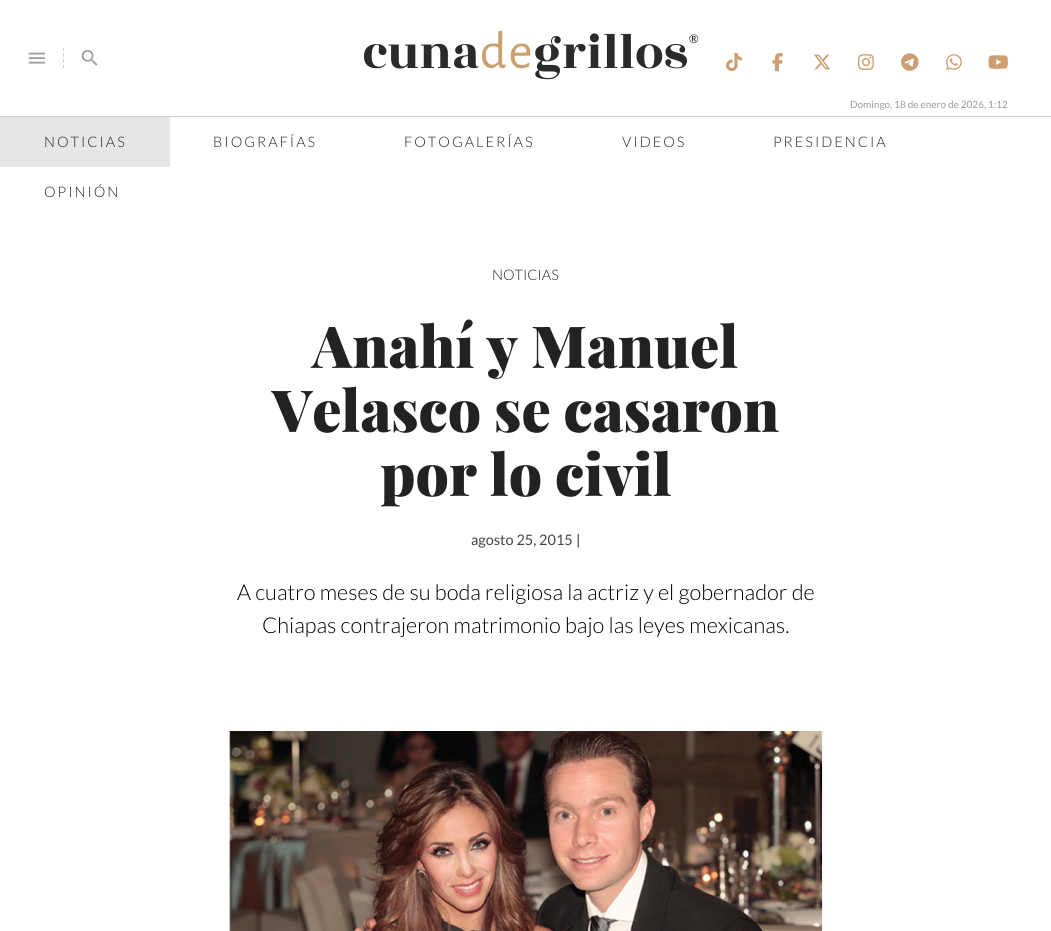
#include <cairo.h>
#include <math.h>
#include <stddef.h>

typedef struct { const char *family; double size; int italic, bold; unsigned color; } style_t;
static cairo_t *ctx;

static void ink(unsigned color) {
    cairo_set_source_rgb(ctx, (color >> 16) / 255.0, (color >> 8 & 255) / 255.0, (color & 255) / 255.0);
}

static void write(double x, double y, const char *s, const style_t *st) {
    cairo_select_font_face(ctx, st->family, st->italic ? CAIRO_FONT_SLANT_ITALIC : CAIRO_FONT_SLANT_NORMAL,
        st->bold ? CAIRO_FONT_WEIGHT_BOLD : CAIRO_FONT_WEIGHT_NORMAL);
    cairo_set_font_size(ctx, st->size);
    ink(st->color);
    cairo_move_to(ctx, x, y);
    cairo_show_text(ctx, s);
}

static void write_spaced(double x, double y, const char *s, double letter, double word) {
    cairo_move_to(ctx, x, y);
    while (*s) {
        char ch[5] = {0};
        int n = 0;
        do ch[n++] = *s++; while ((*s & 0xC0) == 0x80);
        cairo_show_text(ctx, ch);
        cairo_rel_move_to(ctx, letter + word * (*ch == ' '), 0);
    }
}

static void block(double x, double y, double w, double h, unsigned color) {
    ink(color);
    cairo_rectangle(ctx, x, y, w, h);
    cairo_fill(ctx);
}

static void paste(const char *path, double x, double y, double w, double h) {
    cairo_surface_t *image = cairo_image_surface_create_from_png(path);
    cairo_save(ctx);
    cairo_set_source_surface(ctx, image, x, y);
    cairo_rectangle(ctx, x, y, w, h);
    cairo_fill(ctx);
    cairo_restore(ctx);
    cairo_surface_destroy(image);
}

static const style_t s1 = {"Lato", 12, 0, 0, 0x222222};
static const style_t s2 = {"Lato", 10, 0, 0, 0x999999};
static const style_t s3 = {"Lato Light", 14.5, 0, 0, 0x222222};
static const style_t s4 = {"Playfair Display Black", 58, 0, 0, 0x222222};
static const style_t s5 = {"Lato", 14.5, 0, 0, 0x444444};
static const style_t s6 = {"Lato", 14.5, 0, 0, 0x222222};
static const style_t s7 = {"Lato Light", 21.75, 0, 0, 0x000000};

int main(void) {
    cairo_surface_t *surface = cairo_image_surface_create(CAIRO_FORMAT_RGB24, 1051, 931);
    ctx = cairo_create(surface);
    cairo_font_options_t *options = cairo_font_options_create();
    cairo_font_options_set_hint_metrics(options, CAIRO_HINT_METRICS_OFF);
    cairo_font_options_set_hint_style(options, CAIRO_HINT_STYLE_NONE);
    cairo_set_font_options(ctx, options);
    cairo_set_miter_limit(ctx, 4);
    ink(0xffffff);
    cairo_paint(ctx);
    block(0, 116, 1051, 1, 0xcccccc);
    paste("pic1.png", 364, 30, 323, 50);
    write(689, 43, "®", &s1);
    paste("pic2.png", 28, 52, 17, 12);
    cairo_new_path(ctx);
    cairo_move_to(ctx, 63.5, 48);
    cairo_line_to(ctx, 63.5, 68);
    ink(0xcccccc);
    cairo_set_line_width(ctx, 1);
    cairo_set_dash(ctx, (double[]){3, 2.67}, 2, 0);
    cairo_stroke(ctx);
    paste("pic3.png", 81, 50, 17, 16);
    paste("pic4.png", 726, 53, 16, 19);
    paste("pic5.png", 772, 53, 11, 19);
    paste("pic6.png", 814, 54, 17, 16);
    paste("pic7.png", 858, 54, 16, 16);
    paste("pic8.png", 901, 53, 18, 18);
    paste("pic9.png", 946, 54, 16, 16);
    paste("pic10.png", 988, 55, 20, 14);
    write(850, 108, "Domingo, 18 de enero de 2026, 1:12", &s2);
    block(0, 117, 170, 50, 0xe6e6e6);
    cairo_select_font_face(ctx, "Lato Light", CAIRO_FONT_SLANT_NORMAL, CAIRO_FONT_WEIGHT_NORMAL);
    cairo_set_font_size(ctx, 14.5);
    ink(0x222222);
    write_spaced(44, 147, "NOTICIAS", 2, 0);
    write_spaced(213, 147, "BIOGRAFÍAS", 2, 0);
    write_spaced(404, 147, "FOTOGALERÍAS", 2, 0);
    write_spaced(622, 147, "VIDEOS", 2, 0);
    write_spaced(773, 147, "PRESIDENCIA", 2, 0);
    write_spaced(44, 197, "OPINIÓN", 2, 0);
    write(492, 280, "NOTICIAS", &s3);
    write(312, 368, "Anahí y Manuel", &s4);
    write(272, 432, "Velasco se casaron", &s4);
    write(380, 496, "por lo civil", &s4);
    write(471, 545, "agosto 25, 2015", &s5);
    write(576, 545, "|", &s6);
    write(237, 600, "A cuatro meses de su boda religiosa la actriz y el gobernador de", &s7);
    write(262, 633, "Chiapas contrajeron matrimonio bajo las leyes mexicanas.", &s7);
    paste("pic11.png", 229, 731, 594, 200);
    cairo_surface_write_to_png(surface, "screenshot.png");
    cairo_font_options_destroy(options);
    cairo_destroy(ctx);
    cairo_surface_destroy(surface);
    return 0;
}
